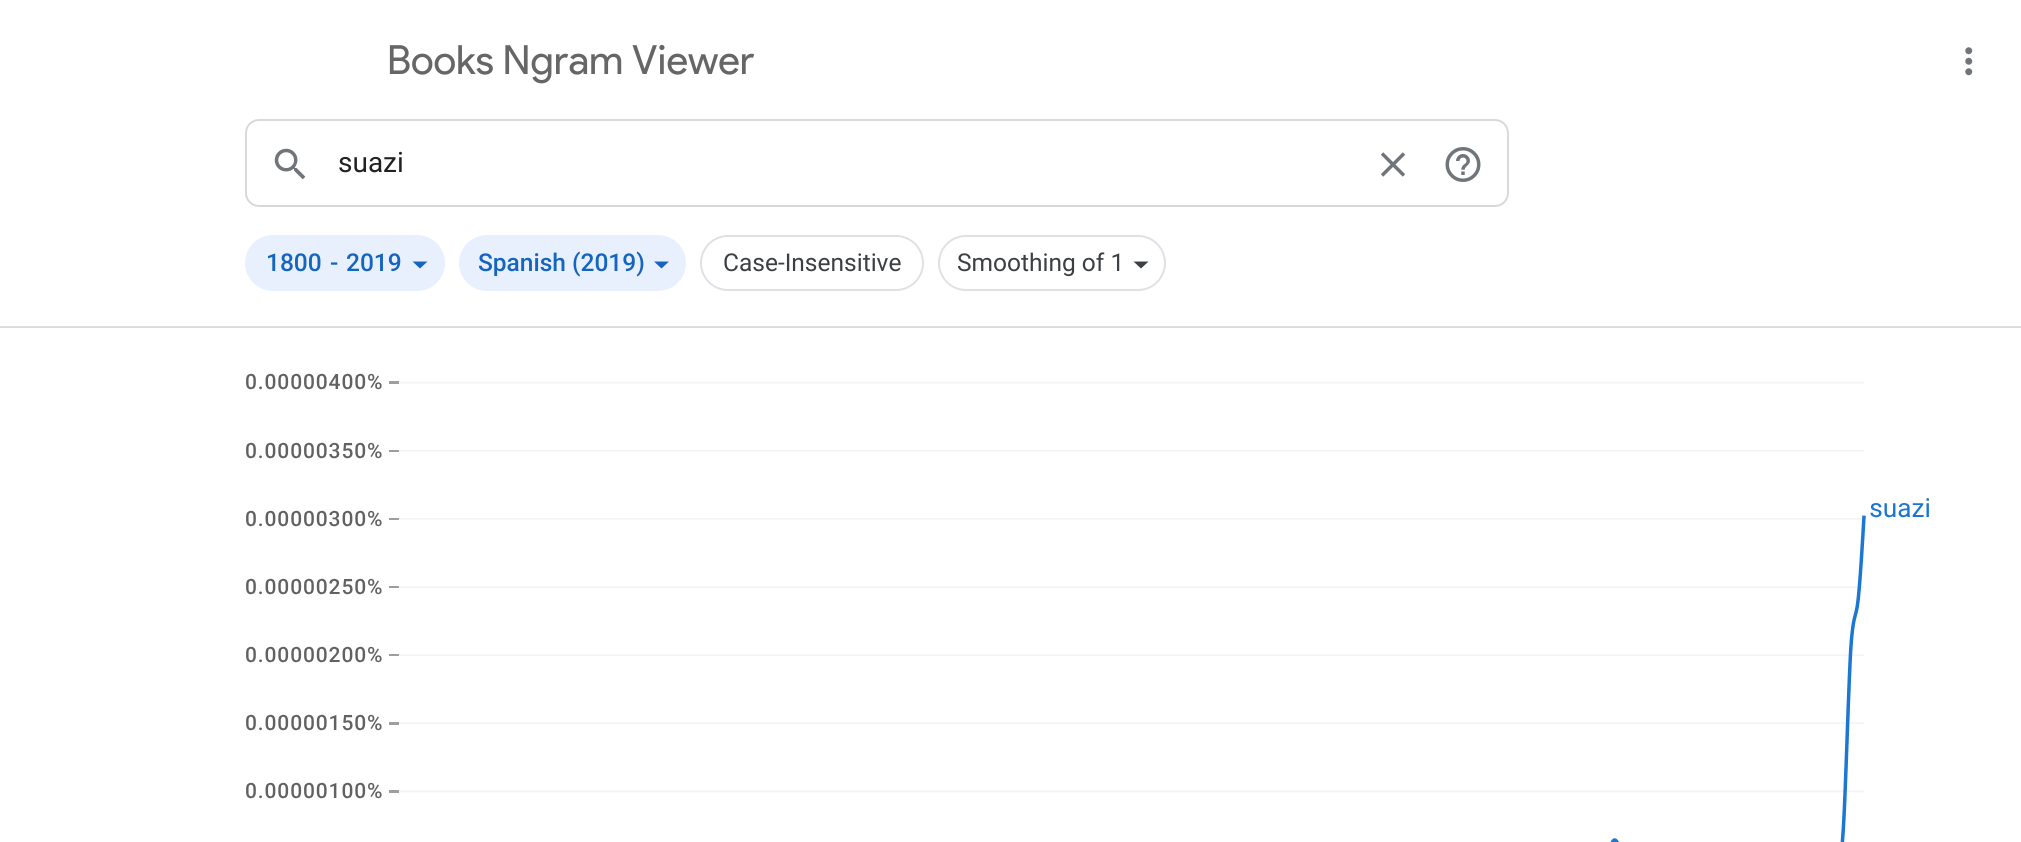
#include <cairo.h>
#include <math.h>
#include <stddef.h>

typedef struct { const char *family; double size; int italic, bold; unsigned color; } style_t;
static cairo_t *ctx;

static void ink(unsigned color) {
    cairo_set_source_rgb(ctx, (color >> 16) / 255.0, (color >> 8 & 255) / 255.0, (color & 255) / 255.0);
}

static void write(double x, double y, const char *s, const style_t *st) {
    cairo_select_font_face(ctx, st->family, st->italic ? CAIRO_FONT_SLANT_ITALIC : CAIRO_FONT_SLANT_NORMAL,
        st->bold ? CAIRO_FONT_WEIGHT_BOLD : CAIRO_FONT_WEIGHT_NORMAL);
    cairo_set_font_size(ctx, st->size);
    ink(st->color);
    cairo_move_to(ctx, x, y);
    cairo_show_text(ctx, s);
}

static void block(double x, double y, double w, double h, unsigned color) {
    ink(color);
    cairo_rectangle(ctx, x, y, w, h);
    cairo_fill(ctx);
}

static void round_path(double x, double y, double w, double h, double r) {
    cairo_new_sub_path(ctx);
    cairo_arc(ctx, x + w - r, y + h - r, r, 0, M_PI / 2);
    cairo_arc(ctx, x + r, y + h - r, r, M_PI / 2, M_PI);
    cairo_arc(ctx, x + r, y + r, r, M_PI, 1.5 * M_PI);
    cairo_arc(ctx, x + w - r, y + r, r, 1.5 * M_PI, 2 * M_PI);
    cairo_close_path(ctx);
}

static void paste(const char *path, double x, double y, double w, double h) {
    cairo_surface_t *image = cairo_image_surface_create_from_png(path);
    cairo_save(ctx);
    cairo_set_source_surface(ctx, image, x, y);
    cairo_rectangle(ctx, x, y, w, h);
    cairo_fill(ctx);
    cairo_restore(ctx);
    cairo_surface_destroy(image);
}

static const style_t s1 = {"Product Sans", 40.25, 0, 0, 0x666666};
static const style_t s2 = {"Roboto", 28, 0, 0, 0x212121};
static const style_t s3 = {"Roboto Medium", 24.5, 0, 0, 0x1565c0};
static const style_t s4 = {"Roboto", 24.5, 0, 0, 0x3c4043};

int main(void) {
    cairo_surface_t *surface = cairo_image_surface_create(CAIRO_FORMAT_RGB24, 2021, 842);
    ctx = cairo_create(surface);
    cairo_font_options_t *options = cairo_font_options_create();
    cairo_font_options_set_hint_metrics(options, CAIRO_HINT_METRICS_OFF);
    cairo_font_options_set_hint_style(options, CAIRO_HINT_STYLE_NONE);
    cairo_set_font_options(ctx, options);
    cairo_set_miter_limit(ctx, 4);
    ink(0xffffff);
    cairo_paint(ctx);
    write(387, 74, "Books Ngram Viewer", &s1);
    paste("pic1.png", 1965, 47, 8, 29);
    round_path(246, 120, 1262, 86, 13);
    ink(0xd9d9d9);
    cairo_stroke(ctx);
    paste("pic2.png", 274, 148, 32, 32);
    write(338, 172, "suazi", &s2);
    paste("pic3.png", 1380, 152, 26, 25);
    paste("pic4.png", 1445, 147, 36, 35);
    ink(0xe8f0fe);
    round_path(246, 236, 198, 54, 27);
    cairo_fill_preserve(ctx);
    cairo_stroke(ctx);
    write(266, 271, "1800", &s3);
    write(330, 271, "-", &s3);
    write(346, 271, "2019", &s3);
    cairo_new_path(ctx);
    cairo_move_to(ctx, 412.5, 261.5);
    cairo_line_to(ctx, 427.5, 261.5);
    cairo_line_to(ctx, 420, 268.5);
    cairo_close_path(ctx);
    cairo_fill(ctx);
    ink(0xe8f0fe);
    round_path(460, 236, 225, 54, 27);
    cairo_fill_preserve(ctx);
    cairo_stroke(ctx);
    write(478, 271, "Spanish (2019)", &s3);
    cairo_new_path(ctx);
    cairo_move_to(ctx, 654, 261.5);
    cairo_line_to(ctx, 669, 261.5);
    cairo_line_to(ctx, 661.5, 268.5);
    cairo_close_path(ctx);
    cairo_fill(ctx);
    round_path(701, 236, 222, 54, 27);
    ink(0xdfe1e5);
    cairo_stroke(ctx);
    write(723, 271, "Case-Insensitive", &s4);
    round_path(939, 236, 226, 54, 27);
    ink(0xdfe1e5);
    cairo_stroke(ctx);
    write(957, 271, "Smoothing of 1", &s4);
    cairo_new_path(ctx);
    cairo_move_to(ctx, 1133.5, 261.5);
    cairo_line_to(ctx, 1148.5, 261.5);
    cairo_line_to(ctx, 1141, 268.5);
    cairo_close_path(ctx);
    cairo_fill(ctx);
    block(0, 326, 2021, 2, 0xdadce0);
    paste("pic5.png", 246, 373, 1684, 469);
    cairo_surface_write_to_png(surface, "screenshot.png");
    cairo_font_options_destroy(options);
    cairo_destroy(ctx);
    cairo_surface_destroy(surface);
    return 0;
}
